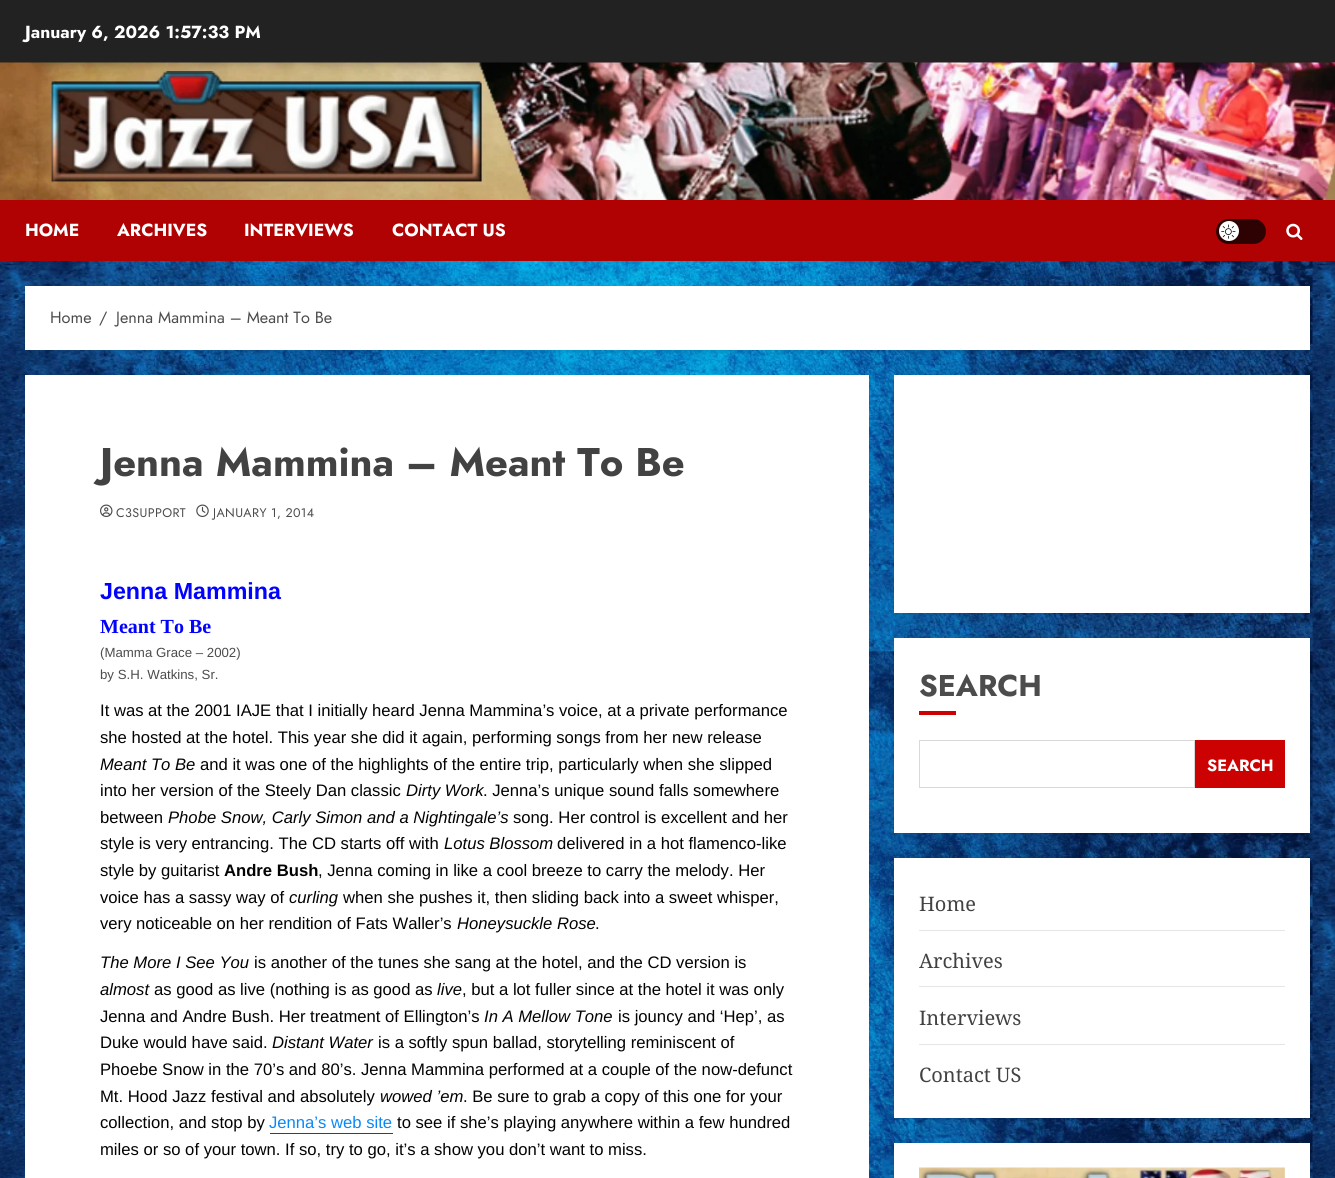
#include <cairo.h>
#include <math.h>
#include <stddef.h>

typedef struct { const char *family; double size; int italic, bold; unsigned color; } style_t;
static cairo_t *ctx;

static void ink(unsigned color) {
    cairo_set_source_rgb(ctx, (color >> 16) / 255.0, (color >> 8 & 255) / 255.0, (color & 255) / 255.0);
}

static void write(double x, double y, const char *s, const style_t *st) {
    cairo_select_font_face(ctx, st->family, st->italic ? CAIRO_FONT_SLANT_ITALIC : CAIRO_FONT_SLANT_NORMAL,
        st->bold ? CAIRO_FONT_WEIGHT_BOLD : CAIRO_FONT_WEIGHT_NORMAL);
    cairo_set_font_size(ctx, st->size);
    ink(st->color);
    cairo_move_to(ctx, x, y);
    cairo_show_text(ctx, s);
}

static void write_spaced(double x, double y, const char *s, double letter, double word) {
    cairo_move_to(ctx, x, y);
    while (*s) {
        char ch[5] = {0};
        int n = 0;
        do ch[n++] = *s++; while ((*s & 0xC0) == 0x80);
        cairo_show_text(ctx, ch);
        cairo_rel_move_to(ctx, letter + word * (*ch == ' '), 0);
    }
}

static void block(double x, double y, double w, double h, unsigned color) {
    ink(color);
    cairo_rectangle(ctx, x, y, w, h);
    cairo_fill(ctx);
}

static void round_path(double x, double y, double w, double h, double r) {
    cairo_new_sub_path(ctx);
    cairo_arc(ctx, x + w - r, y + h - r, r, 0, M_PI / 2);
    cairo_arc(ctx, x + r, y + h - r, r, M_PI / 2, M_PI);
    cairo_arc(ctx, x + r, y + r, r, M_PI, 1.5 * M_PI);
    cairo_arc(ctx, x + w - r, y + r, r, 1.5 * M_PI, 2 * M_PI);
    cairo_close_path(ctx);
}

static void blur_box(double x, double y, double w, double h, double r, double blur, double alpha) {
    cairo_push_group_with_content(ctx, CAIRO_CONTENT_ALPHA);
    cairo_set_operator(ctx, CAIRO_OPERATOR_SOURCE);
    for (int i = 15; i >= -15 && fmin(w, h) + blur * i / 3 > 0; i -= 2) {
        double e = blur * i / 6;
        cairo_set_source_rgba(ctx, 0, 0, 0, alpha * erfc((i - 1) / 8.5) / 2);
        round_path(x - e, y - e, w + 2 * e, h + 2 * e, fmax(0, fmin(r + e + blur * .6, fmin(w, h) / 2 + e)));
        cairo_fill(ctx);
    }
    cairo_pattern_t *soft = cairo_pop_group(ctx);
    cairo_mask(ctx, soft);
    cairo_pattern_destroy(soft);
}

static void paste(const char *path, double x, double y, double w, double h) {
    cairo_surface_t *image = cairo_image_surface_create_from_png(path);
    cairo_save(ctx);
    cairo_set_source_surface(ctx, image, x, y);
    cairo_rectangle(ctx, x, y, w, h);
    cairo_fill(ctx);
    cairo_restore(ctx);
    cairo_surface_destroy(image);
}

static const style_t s1 = {"Jost", 17.5, 0, 1, 0xffffff};
static const style_t s2 = {"Jost", 16.25, 0, 0, 0x4c4c4c};
static const style_t s3 = {"Jost", 40, 0, 1, 0x424242};
static const style_t s4 = {"Liberation Sans", 23.25, 0, 1, 0x0202ff};
static const style_t s5 = {"Liberation Serif", 20, 0, 1, 0x0202ff};
static const style_t s6 = {"Liberation Sans", 13.25, 0, 0, 0x4c4c4c};
static const style_t s7 = {"Liberation Sans", 16.65, 0, 0, 0x020202};
static const style_t s8 = {"Liberation Sans", 16.65, 1, 0, 0x020202};
static const style_t s9 = {"Liberation Sans", 16.65, 0, 1, 0x020202};
static const style_t s10 = {"Liberation Sans", 16.65, 0, 0, 0x0b88f5};
static const style_t s11 = {"Jost", 30, 0, 1, 0x4c4c4c};
static const style_t s12 = {"Jost", 16.25, 0, 1, 0xffffff};
static const style_t s13 = {"Noto Serif", 20, 0, 0, 0x424242};

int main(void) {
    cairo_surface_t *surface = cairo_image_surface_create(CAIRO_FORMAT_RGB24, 1335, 1178);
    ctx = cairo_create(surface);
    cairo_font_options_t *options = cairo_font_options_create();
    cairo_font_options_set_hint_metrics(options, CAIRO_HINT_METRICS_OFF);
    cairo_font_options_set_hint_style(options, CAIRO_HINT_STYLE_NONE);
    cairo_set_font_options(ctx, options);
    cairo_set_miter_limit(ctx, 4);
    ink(0xffffff);
    cairo_paint(ctx);
    paste("pic1.png", 0, 261, 1335, 917);
    block(0, 0, 1335, 63, 0x222222);
    write(25, 38, "January 6, 2026 1:57:33 PM", &s1);
    paste("pic2.png", 0, 62, 1335, 138);
    block(0, 200, 1335, 61, 0xb00202);
    write(25, 236, "HOME", &s1);
    write(117, 236, "ARCHIVES", &s1);
    write(244, 236, "INTERVIEWS", &s1);
    write(392, 236, "CONTACT US", &s1);
    ink(0x2e0202);
    round_path(1216, 219, 50, 25, 12.5);
    cairo_fill(ctx);
    ink(0xffffff);
    cairo_arc(ctx, 1229, 231, 10, 0, 2 * M_PI);
    cairo_fill(ctx);
    paste("pic3.png", 1221, 224, 15, 15);
    paste("pic4.png", 1286, 223, 17, 17);
    ink(0x020202);
    blur_box(25, 289, 1285, 64, 0, 1, 0.08);
    block(25, 286, 1285, 64, 0xffffff);
    write(50, 323, "Home", &s2);
    write(99, 323, "/", &s2);
    write(116, 323, "Jenna Mammina – Meant To Be", &s2);
    block(25, 375, 844, 803, 0xffffff);
    write(100, 476, "Jenna Mammina – Meant To Be", &s3);
    paste("pic5.png", 100, 504, 13, 13);
    cairo_select_font_face(ctx, "Jost", CAIRO_FONT_SLANT_NORMAL, CAIRO_FONT_WEIGHT_NORMAL);
    cairo_set_font_size(ctx, 12.5);
    ink(0x4c4c4c);
    write_spaced(116, 517, "C3SUPPORT", 0.4, 0);
    paste("pic6.png", 196, 504, 13, 13);
    write_spaced(213, 517, "JANUARY 1, 2014", 0.4, 0);
    write(100, 599, "Jenna Mammina", &s4);
    write(100, 633, "Meant To Be", &s5);
    write(100, 657, "(Mamma Grace – 2002)", &s6);
    write(100, 679, "by S.H. Watkins, Sr.", &s6);
    write(100, 716, "It was at the 2001 IAJE that I initially heard Jenna Mammina’s voice, at a private performance", &s7);
    write(100, 743, "she hosted at the hotel. This year she did it again, performing songs from her new release", &s7);
    write(100, 770, "Meant To Be", &s8);
    write(200, 770, "and it was one of the highlights of the entire trip, particularly when she slipped", &s7);
    write(100, 796, "into her version of the Steely Dan classic", &s7);
    write(406, 796, "Dirty Work", &s8);
    write(483, 796, ". Jenna’s unique sound falls somewhere", &s7);
    write(100, 823, "between", &s7);
    write(168, 823, "Phobe Snow, Carly Simon and a Nightingale’s", &s8);
    write(513, 823, "song. Her control is excellent and her", &s7);
    write(100, 849, "style is very entrancing. The CD starts off with", &s7);
    write(444, 849, "Lotus Blossom", &s8);
    write(557, 849, "delivered in a hot flamenco-like", &s7);
    write(100, 876, "style by guitarist", &s7);
    write(224, 876, "Andre Bush", &s9);
    write(318, 876, ", Jenna coming in like a cool breeze to carry the melody. Her", &s7);
    write(100, 903, "voice has a sassy way of", &s7);
    write(289, 903, "curling", &s8);
    write(343, 903, "when she pushes it, then sliding back into a sweet whisper,", &s7);
    write(100, 929, "very noticeable on her rendition of Fats Waller’s", &s7);
    write(457, 929, "Honeysuckle Rose", &s8);
    write(595, 929, ".", &s7);
    write(100, 968, "The More I See You", &s8);
    write(254, 968, "is another of the tunes she sang at the hotel, and the CD version is", &s7);
    write(100, 995, "almost", &s8);
    write(154, 995, "as good as live (nothing is as good as", &s7);
    write(437, 995, "live", &s8);
    write(462, 995, ", but a lot fuller since at the hotel it was only", &s7);
    write(100, 1022, "Jenna and Andre Bush. Her treatment of Ellington’s", &s7);
    write(484, 1022, "In A Mellow Tone", &s8);
    write(618, 1022, "is jouncy and ‘Hep’, as", &s7);
    write(100, 1048, "Duke would have said.", &s7);
    write(272, 1048, "Distant Water", &s8);
    write(378, 1048, "is a softly spun ballad, storytelling reminiscent of", &s7);
    write(100, 1075, "Phoebe Snow in the 70’s and 80’s. Jenna Mammina performed at a couple of the now-defunct", &s7);
    write(100, 1102, "Mt. Hood Jazz festival and absolutely", &s7);
    write(380, 1102, "wowed ’em", &s8);
    write(463, 1102, ". Be sure to grab a copy of this one for your", &s7);
    write(100, 1128, "collection, and stop by", &s7);
    write(269, 1128, "Jenna’s web site", &s10);
    block(270, 1133, 123, 1, 0xcc0202);
    write(397, 1128, "to see if she’s playing anywhere within a few hundred", &s7);
    write(100, 1155, "miles or so of your town. If so, try to go, it’s a show you don’t want to miss.", &s7);
    ink(0x020202);
    blur_box(894, 378, 416, 237, 0, 1, 0.08);
    block(894, 375, 416, 238, 0xffffff);
    ink(0x020202);
    blur_box(894, 640, 416, 195, 0, 1, 0.08);
    block(894, 638, 416, 195, 0xffffff);
    write(919, 696, "SEARCH", &s11);
    block(919, 711, 37, 4, 0xcc0202);
    cairo_rectangle(ctx, 919.5, 740.5, 275, 47);
    ink(0xd9d9d9);
    cairo_set_line_width(ctx, 1);
    cairo_stroke(ctx);
    block(1195, 740, 90, 48, 0xcc0202);
    write(1207, 771, "SEARCH", &s12);
    ink(0x020202);
    blur_box(894, 860, 416, 260, 0, 1, 0.08);
    block(894, 858, 416, 260, 0xffffff);
    block(919, 930, 366, 1, 0xe6e6e6);
    write(919, 911, "Home", &s13);
    block(919, 986, 366, 1, 0xe6e6e6);
    write(919, 968, "Archives", &s13);
    block(919, 1044, 366, 1, 0xe6e6e6);
    write(919, 1025, "Interviews", &s13);
    write(919, 1082, "Contact US", &s13);
    ink(0x020202);
    blur_box(894, 1145, 416, 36, 0, 1, 0.08);
    block(894, 1143, 416, 35, 0xffffff);
    paste("pic7.png", 919, 1167, 366, 11);
    cairo_surface_write_to_png(surface, "screenshot.png");
    cairo_font_options_destroy(options);
    cairo_destroy(ctx);
    cairo_surface_destroy(surface);
    return 0;
}
